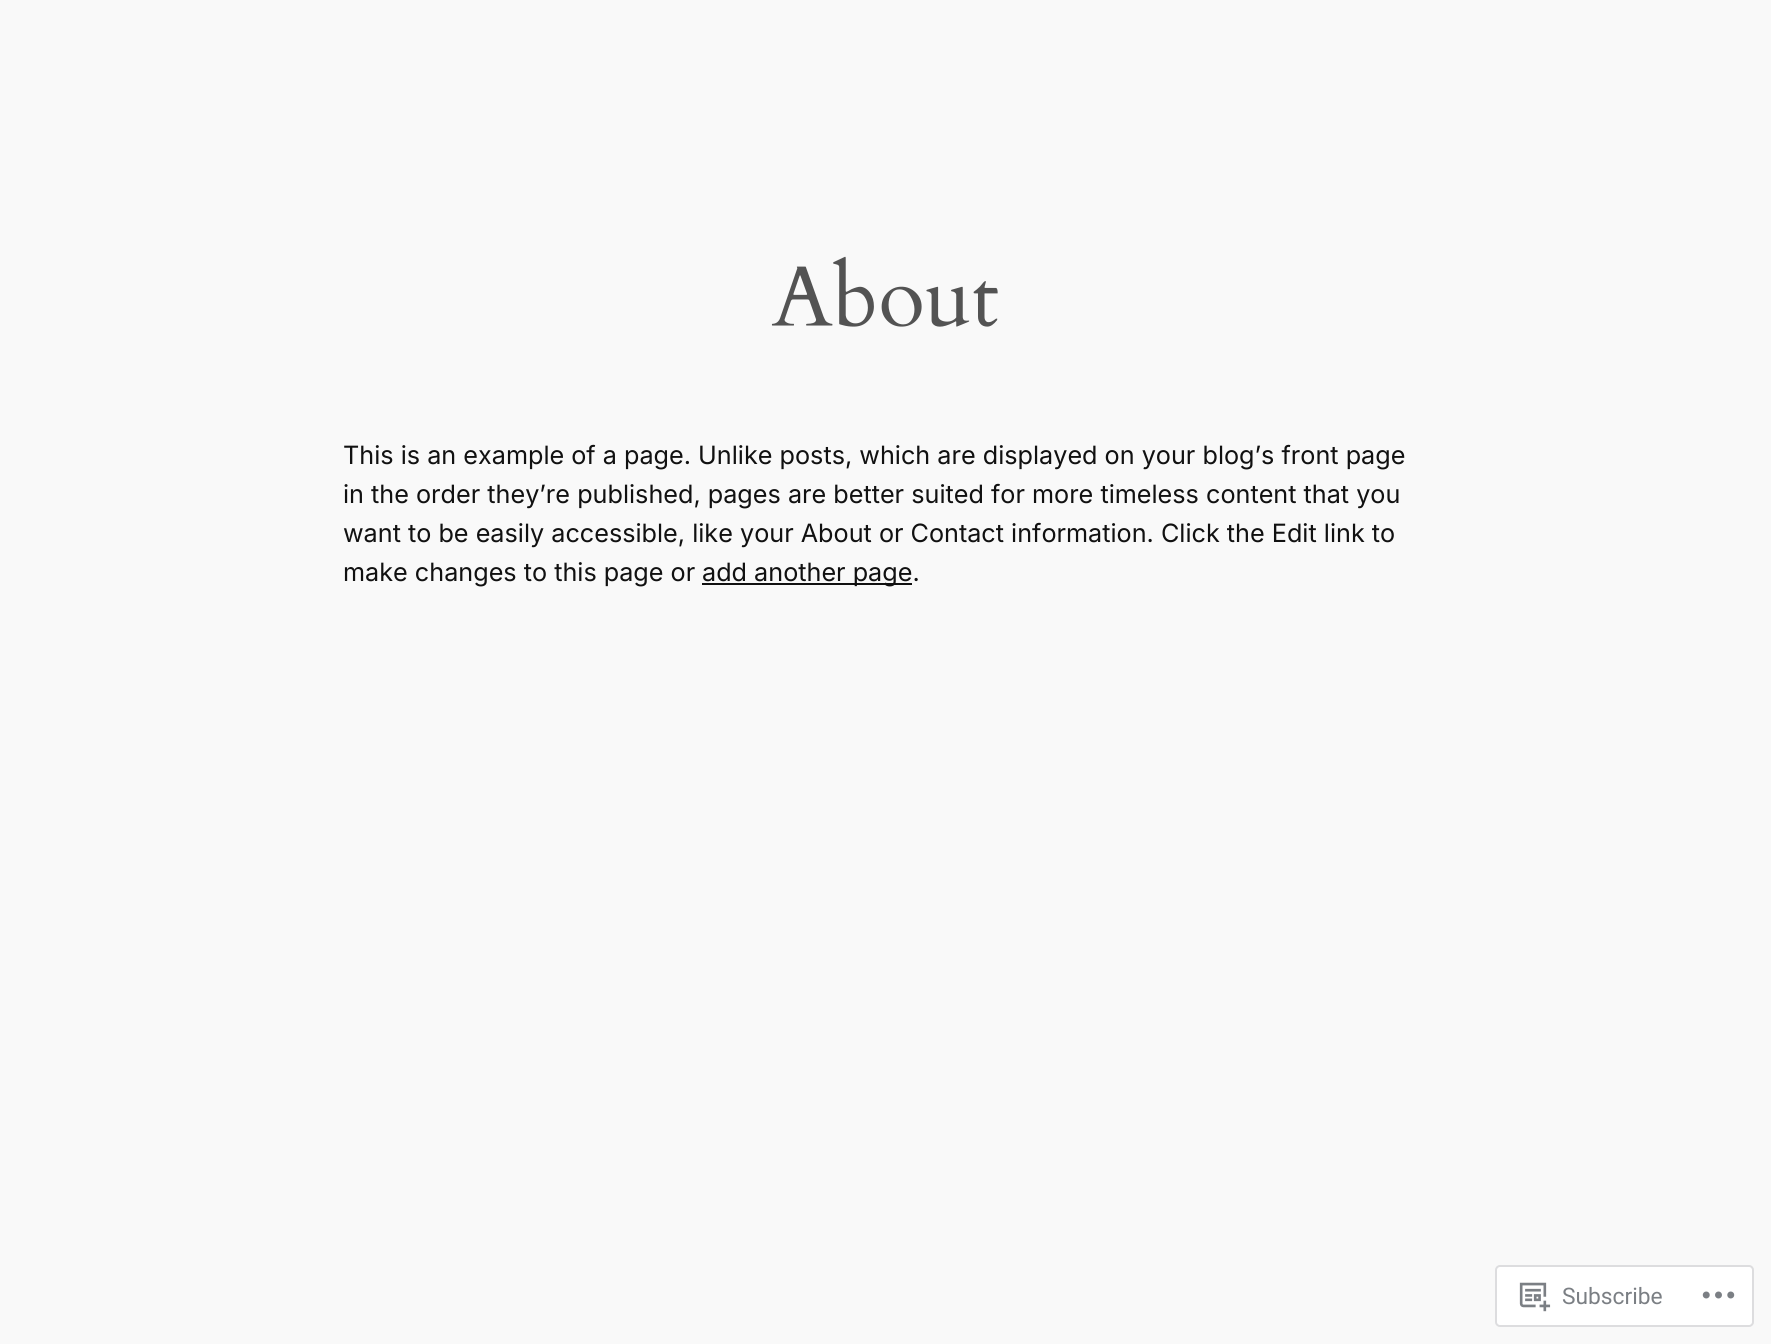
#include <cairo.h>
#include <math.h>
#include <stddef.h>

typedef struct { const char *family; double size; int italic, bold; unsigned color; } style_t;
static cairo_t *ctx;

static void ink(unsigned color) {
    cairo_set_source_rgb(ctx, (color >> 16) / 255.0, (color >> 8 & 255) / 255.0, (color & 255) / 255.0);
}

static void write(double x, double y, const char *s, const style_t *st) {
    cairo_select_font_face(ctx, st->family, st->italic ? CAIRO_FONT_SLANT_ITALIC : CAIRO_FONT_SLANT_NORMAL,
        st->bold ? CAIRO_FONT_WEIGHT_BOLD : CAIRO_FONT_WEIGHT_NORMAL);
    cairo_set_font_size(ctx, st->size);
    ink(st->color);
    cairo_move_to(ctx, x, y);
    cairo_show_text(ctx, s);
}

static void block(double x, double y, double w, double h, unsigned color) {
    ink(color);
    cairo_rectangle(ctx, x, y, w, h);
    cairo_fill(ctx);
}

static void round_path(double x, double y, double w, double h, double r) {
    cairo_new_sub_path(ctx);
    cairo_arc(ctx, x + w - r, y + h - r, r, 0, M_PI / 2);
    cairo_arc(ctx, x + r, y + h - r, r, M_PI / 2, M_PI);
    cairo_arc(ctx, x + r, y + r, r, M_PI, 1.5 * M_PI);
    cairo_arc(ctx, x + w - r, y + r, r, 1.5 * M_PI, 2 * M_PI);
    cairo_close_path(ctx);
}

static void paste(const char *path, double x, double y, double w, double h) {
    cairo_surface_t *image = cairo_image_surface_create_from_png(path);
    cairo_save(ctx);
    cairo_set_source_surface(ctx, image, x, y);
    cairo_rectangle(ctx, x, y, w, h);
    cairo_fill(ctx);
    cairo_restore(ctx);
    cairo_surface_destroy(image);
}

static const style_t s1 = {"Inter", 25.2, 0, 0, 0x111111};
static const style_t s2 = {"Roboto", 22.75, 0, 0, 0x7b7f84};

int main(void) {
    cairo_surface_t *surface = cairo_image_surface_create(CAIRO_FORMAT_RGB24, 1771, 1344);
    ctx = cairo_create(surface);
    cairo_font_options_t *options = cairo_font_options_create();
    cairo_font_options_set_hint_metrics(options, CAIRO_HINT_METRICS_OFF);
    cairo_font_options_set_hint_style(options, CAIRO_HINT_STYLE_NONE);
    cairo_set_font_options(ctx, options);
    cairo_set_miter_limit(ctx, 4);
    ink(0xf9f9f9);
    cairo_paint(ctx);
    paste("pic1.png", 771, 256, 227, 71);
    write(343, 464, "This is an example of a page. Unlike posts, which are displayed on your blog’s front page", &s1);
    write(343, 503, "in the order they’re published, pages are better suited for more timeless content that you", &s1);
    write(343, 542, "want to be easily accessible, like your About or Contact information. Click the Edit link to", &s1);
    write(343, 581, "make changes to this page or", &s1);
    block(702, 583, 210, 2, 0x111111);
    write(702, 581, "add another page.", &s1);
    ink(0xffffff);
    round_path(1496, 1266, 257, 60, 4);
    cairo_fill_preserve(ctx);
    ink(0xdddddf);
    cairo_stroke(ctx);
    paste("pic2.png", 1519, 1282, 32, 30);
    write(1562, 1304, "Subscribe", &s2);
    paste("pic3.png", 1702, 1291, 33, 8);
    cairo_surface_write_to_png(surface, "screenshot.png");
    cairo_font_options_destroy(options);
    cairo_destroy(ctx);
    cairo_surface_destroy(surface);
    return 0;
}
